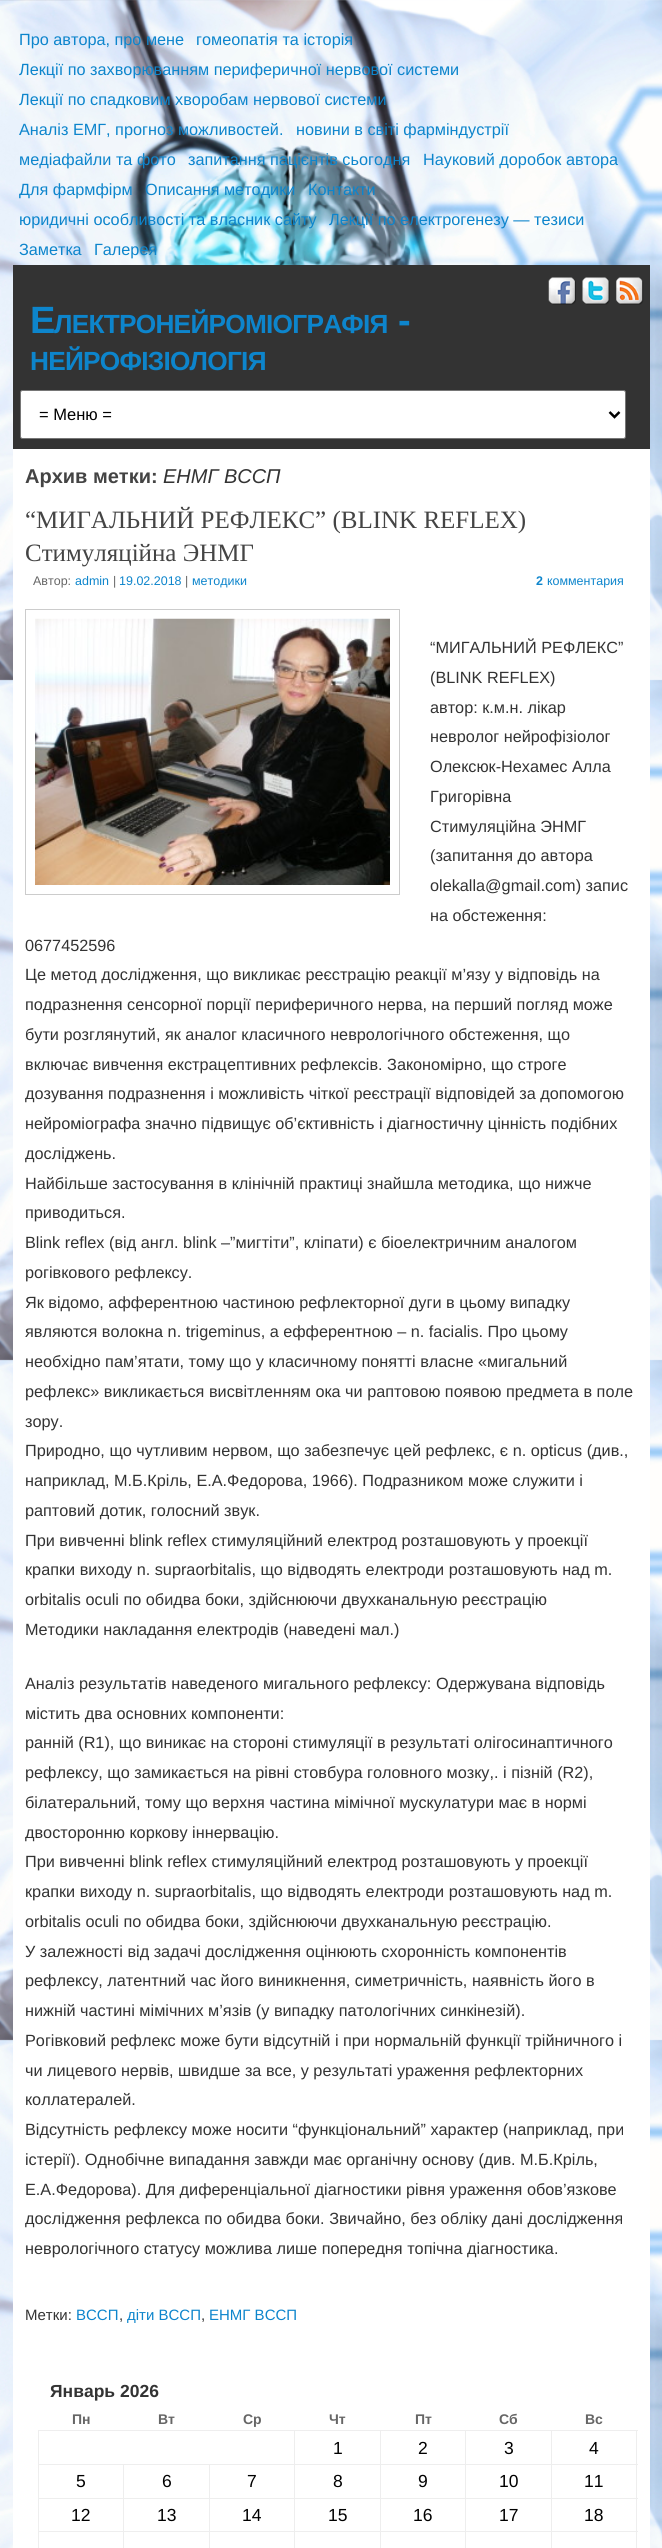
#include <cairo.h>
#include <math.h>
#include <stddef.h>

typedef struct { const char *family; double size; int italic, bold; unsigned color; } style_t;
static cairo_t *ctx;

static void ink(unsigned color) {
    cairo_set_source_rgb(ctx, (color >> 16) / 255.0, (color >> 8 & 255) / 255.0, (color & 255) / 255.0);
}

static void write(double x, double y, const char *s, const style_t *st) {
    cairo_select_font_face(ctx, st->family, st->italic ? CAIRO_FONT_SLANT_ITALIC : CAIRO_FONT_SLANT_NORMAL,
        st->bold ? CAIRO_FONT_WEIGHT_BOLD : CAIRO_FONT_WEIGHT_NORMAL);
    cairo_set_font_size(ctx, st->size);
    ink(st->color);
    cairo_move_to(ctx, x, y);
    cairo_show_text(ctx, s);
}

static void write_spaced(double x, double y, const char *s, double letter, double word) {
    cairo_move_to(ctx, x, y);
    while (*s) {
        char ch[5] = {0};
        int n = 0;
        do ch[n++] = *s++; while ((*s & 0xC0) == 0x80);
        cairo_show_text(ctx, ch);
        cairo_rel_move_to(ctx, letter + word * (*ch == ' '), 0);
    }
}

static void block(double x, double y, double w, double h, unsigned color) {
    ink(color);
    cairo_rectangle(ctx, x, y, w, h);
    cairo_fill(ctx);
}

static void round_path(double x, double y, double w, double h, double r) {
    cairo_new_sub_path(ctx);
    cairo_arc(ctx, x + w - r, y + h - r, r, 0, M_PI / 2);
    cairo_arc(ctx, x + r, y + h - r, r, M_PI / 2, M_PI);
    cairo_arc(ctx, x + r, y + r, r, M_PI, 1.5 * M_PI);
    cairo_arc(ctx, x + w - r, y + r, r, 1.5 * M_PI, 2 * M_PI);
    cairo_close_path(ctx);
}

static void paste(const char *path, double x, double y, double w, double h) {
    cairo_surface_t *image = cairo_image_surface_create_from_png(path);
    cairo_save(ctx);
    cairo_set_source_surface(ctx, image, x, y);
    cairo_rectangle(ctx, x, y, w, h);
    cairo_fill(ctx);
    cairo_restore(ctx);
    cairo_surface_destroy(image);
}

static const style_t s1 = {"Liberation Sans", 16.25, 0, 0, 0x0d85cc};
static const style_t s2 = {"Liberation Sans", 16.5, 0, 0, 0x000000};
static const style_t s3 = {"Liberation Sans", 20, 0, 1, 0x444444};
static const style_t s4 = {"Liberation Sans", 20, 1, 0, 0x333333};
static const style_t s5 = {"Liberation Serif", 25, 0, 0, 0x444444};
static const style_t s6 = {"Liberation Sans", 12.5, 0, 0, 0x666666};
static const style_t s7 = {"Liberation Sans", 12.5, 0, 0, 0x0d85cc};
static const style_t s8 = {"Liberation Sans", 12.5, 0, 1, 0x0d85cc};
static const style_t s9 = {"Liberation Sans", 16.25, 0, 0, 0x333333};
static const style_t s10 = {"Liberation Sans", 15, 0, 0, 0x333333};
static const style_t s11 = {"Liberation Sans", 15, 0, 0, 0x0d85cc};
static const style_t s12 = {"Liberation Sans", 17.5, 0, 1, 0x333333};
static const style_t s13 = {"Liberation Sans", 14, 0, 1, 0x666666};
static const style_t s14 = {"Liberation Sans", 17.5, 0, 0, 0x000000};

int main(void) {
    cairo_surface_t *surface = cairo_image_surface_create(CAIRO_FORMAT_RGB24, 662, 2548);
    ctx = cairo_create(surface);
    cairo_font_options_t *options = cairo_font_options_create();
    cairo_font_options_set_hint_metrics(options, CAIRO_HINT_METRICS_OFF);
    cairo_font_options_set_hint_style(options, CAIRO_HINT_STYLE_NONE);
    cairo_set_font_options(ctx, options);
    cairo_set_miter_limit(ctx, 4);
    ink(0xffffff);
    cairo_paint(ctx);
    paste("pic1.png", 0, 0, 662, 2548);
    write(19, 45, "Про автора, про мене", &s1);
    write(196, 45, "гомеопатія та історія", &s1);
    write(19, 75, "Лекції по захворюванням периферичної нервової системи", &s1);
    write(19, 105, "Лекції по спадковим хворобам нервової системи", &s1);
    write(19, 135, "Аналіз ЕМГ, прогноз можливостей.", &s1);
    write(296, 135, "новини в світі фарміндустрії", &s1);
    write(19, 165, "медіафайли та фото", &s1);
    write(188, 165, "запитання пацієнтів сьогодня", &s1);
    write(423, 165, "Науковий доробок автора", &s1);
    write(19, 195, "Для фармфірм", &s1);
    write(145, 195, "Описання методики", &s1);
    write(308, 195, "Контакти", &s1);
    write(19, 225, "юридичні особливості та власник сайту", &s1);
    write(329, 225, "Лекції по електрогенезу — тезиси", &s1);
    write(19, 255, "Заметка", &s1);
    write(94, 255, "Галерея", &s1);
    block(13, 265, 637, 184, 0x333333);
    paste("pic2.png", 548, 277, 28, 28);
    paste("pic3.png", 582, 277, 28, 28);
    paste("pic4.png", 616, 277, 28, 28);
    cairo_select_font_face(ctx, "Liberation Sans", CAIRO_FONT_SLANT_NORMAL, CAIRO_FONT_WEIGHT_BOLD);
    cairo_set_font_size(ctx, 38);
    ink(0x0d85cc);
    write_spaced(30, 333, "Е", -0.75, 0);
    cairo_set_font_size(ctx, 26.25);
    write_spaced(54, 333, "ЛЕКТРОНЕЙРОМІОГРАФІЯ", -0.75, 0);
    cairo_set_font_size(ctx, 38);
    write_spaced(398, 333, "-", -0.75, 0);
    cairo_set_font_size(ctx, 26.25);
    write_spaced(30, 370, "НЕЙРОФІЗІОЛОГІЯ", -0.75, 0);
    ink(0xffffff);
    round_path(20.5, 390.5, 605, 48, 2);
    cairo_fill_preserve(ctx);
    ink(0x767676);
    cairo_set_line_width(ctx, 1);
    cairo_stroke(ctx);
    cairo_new_path(ctx);
    cairo_move_to(ctx, 609.5, 412);
    cairo_line_to(ctx, 614.5, 417);
    cairo_line_to(ctx, 619.5, 412);
    ink(0x000000);
    cairo_set_line_width(ctx, 2.5);
    cairo_stroke(ctx);
    write(39, 420, "= Меню =", &s2);
    block(13, 449, 637, 2099, 0xffffff);
    write(25, 483, "Архив метки:", &s3);
    write(163, 483, "ЕНМГ ВССП", &s4);
    write(25, 528, "“МИГАЛЬНИЙ РЕФЛЕКС” (BLINK REFLEX)", &s5);
    write(25, 561, "Стимуляційна ЭНМГ", &s5);
    write(33, 585, "Автор:", &s6);
    write(75, 585, "admin", &s7);
    write(113, 585, "|", &s6);
    write(119, 585, "19.02.2018", &s7);
    write(185, 585, "|", &s6);
    write(192, 585, "методики", &s7);
    write(536, 585, "2", &s8);
    write(547, 585, "комментария", &s7);
    cairo_rectangle(ctx, 25.5, 609.5, 374, 285);
    ink(0xcccccc);
    cairo_set_line_width(ctx, 1);
    cairo_stroke(ctx);
    paste("pic5.png", 35, 618, 355, 267);
    write(430, 653, "“МИГАЛЬНИЙ РЕФЛЕКС”", &s9);
    write(430, 683, "(BLINK REFLEX)", &s9);
    write(430, 713, "автор: к.м.н. лікар", &s9);
    write(430, 742, "невролог нейрофізіолог", &s9);
    write(430, 772, "Олексюк-Нехамес Алла", &s9);
    write(430, 802, "Григорівна", &s9);
    write(430, 832, "Стимуляційна ЭНМГ", &s9);
    write(430, 861, "(запитання до автора", &s9);
    write(430, 891, "olekalla@gmail.com) запис", &s9);
    write(430, 921, "на обстеження:", &s9);
    write(25, 951, "0677452596", &s9);
    write(25, 980, "Це метод дослідження, що викликає реєстрацію реакції м’язу у відповідь на", &s9);
    write(25, 1010, "подразнення сенсорної порції периферичного нерва, на перший погляд може", &s9);
    write(25, 1040, "бути розглянутий, як аналог класичного неврологічного обстеження, що", &s9);
    write(25, 1070, "включає вивчення екстрацептивних рефлексів. Закономірно, що строге", &s9);
    write(25, 1099, "дозування подразнення і можливість чіткої реєстрації відповідей за допомогою", &s9);
    write(25, 1129, "нейроміографа значно підвищує об’єктивність і діагностичну цінність подібних", &s9);
    write(25, 1159, "досліджень.", &s9);
    write(25, 1189, "Найбільше застосування в клінічній практиці знайшла методика, що нижче", &s9);
    write(25, 1218, "приводиться.", &s9);
    write(25, 1248, "Blink reflex (від англ. blink –”мигтіти”, кліпати) є біоелектричним аналогом", &s9);
    write(25, 1278, "рогівкового рефлексу.", &s9);
    write(25, 1308, "Як відомо, афферентною частиною рефлекторної дуги в цьому випадку", &s9);
    write(25, 1337, "являются волокна n. trigeminus, а ефферентною – n. facialis. Про цьому", &s9);
    write(25, 1367, "необхідно пам’ятати, тому що у класичному понятті власне «мигальний", &s9);
    write(25, 1397, "рефлекс» викликається висвітленням ока чи раптовою появою предмета в поле", &s9);
    write(25, 1427, "зору.", &s9);
    write(25, 1456, "Природно, що чутливим нервом, що забезпечує цей рефлекс, є n. opticus (див.,", &s9);
    write(25, 1486, "наприклад, М.Б.Кріль, Е.А.Федорова, 1966). Подразником може служити і", &s9);
    write(25, 1516, "раптовий дотик, голосний звук.", &s9);
    write(25, 1546, "При вивченні blink reflex стимуляційний електрод розташовують у проекції", &s9);
    write(25, 1575, "крапки виходу n. supraorbitalis, що відводять електроди розташовують над m.", &s9);
    write(25, 1605, "orbitalis oculi по обидва боки, здійснюючи двухканальную реєстрацію", &s9);
    write(25, 1635, "Методики накладання електродів (наведені мал.)", &s9);
    write(25, 1689, "Аналіз результатів наведеного мигального рефлексу: Одержувана відповідь", &s9);
    write(25, 1719, "містить два основних компоненти:", &s9);
    write(25, 1748, "ранній (R1), що виникає на стороні стимуляції в результаті олігосинаптичного", &s9);
    write(25, 1778, "рефлексу, що замикається на рівні стовбура головного мозку,. і пізній (R2),", &s9);
    write(25, 1808, "білатеральний, тому що верхня частина мімічної мускулатури має в нормі", &s9);
    write(25, 1838, "двосторонню коркову іннервацію.", &s9);
    write(25, 1867, "При вивченні blink reflex стимуляційний електрод розташовують у проекції", &s9);
    write(25, 1897, "крапки виходу n. supraorbitalis, що відводять електроди розташовують над m.", &s9);
    write(25, 1927, "orbitalis oculi по обидва боки, здійснюючи двухканальную реєстрацію.", &s9);
    write(25, 1957, "У залежності від задачі дослідження оцінюють схоронність компонентів", &s9);
    write(25, 1986, "рефлексу, латентний час його виникнення, симетричність, наявність його в", &s9);
    write(25, 2016, "нижній частині мімічних м’язів (у випадку патологічних синкінезій).", &s9);
    write(25, 2046, "Рогівковий рефлекс може бути відсутній і при нормальній функції трійничного і", &s9);
    write(25, 2076, "чи лицевого нервів, швидше за все, у результаті ураження рефлекторних", &s9);
    write(25, 2105, "коллатералей.", &s9);
    write(25, 2135, "Відсутність рефлексу може носити “функціональний” характер (наприклад, при", &s9);
    write(25, 2165, "істерії). Однобічне випадання завжди має органічну основу (див. М.Б.Кріль,", &s9);
    write(25, 2195, "Е.А.Федорова). Для диференціальної діагностики рівня ураження обов’язкове", &s9);
    write(25, 2224, "дослідження рефлекса по обидва боки. Звичайно, без обліку дані дослідження", &s9);
    write(25, 2254, "неврологічного статусу можлива лише попередня топічна діагностика.", &s9);
    write(25, 2320, "Метки:", &s10);
    write(76, 2320, "ВССП", &s11);
    write(119, 2320, ",", &s10);
    write(127, 2320, "діти ВССП", &s11);
    write(201, 2320, ",", &s10);
    write(209, 2320, "ЕНМГ ВССП", &s11);
    write(50, 2397, "Январь 2026", &s12);
    write(72, 2424, "Пн", &s13);
    write(158, 2424, "Вт", &s13);
    write(243, 2424, "Ср", &s13);
    write(329, 2424, "Чт", &s13);
    write(415, 2424, "Пт", &s13);
    write(499, 2424, "Сб", &s13);
    write(585, 2424, "Вс", &s13);
    block(551, 2430, 87, 1, 0xeeeeee);
    block(551, 2464, 87, 1, 0xeeeeee);
    block(551, 2498, 87, 1, 0xeeeeee);
    block(551, 2531, 87, 1, 0xeeeeee);
    block(551, 2531, 1, 17, 0xeeeeee);
    block(465, 2531, 88, 1, 0xeeeeee);
    block(551, 2498, 1, 35, 0xeeeeee);
    block(465, 2498, 88, 1, 0xeeeeee);
    block(551, 2464, 1, 35, 0xeeeeee);
    block(465, 2464, 88, 1, 0xeeeeee);
    block(551, 2430, 1, 35, 0xeeeeee);
    block(465, 2430, 88, 1, 0xeeeeee);
    block(465, 2531, 1, 17, 0xeeeeee);
    block(380, 2531, 86, 1, 0xeeeeee);
    block(465, 2498, 1, 35, 0xeeeeee);
    block(380, 2498, 86, 1, 0xeeeeee);
    block(465, 2464, 1, 35, 0xeeeeee);
    block(380, 2464, 86, 1, 0xeeeeee);
    block(465, 2430, 1, 35, 0xeeeeee);
    block(380, 2430, 86, 1, 0xeeeeee);
    block(380, 2531, 1, 17, 0xeeeeee);
    block(294, 2531, 87, 1, 0xeeeeee);
    block(380, 2498, 1, 35, 0xeeeeee);
    block(294, 2498, 87, 1, 0xeeeeee);
    block(380, 2464, 1, 35, 0xeeeeee);
    block(294, 2464, 87, 1, 0xeeeeee);
    block(380, 2430, 1, 35, 0xeeeeee);
    block(294, 2430, 87, 1, 0xeeeeee);
    block(294, 2531, 1, 17, 0xeeeeee);
    block(209, 2531, 86, 1, 0xeeeeee);
    block(294, 2498, 1, 35, 0xeeeeee);
    block(209, 2498, 86, 1, 0xeeeeee);
    block(294, 2464, 1, 35, 0xeeeeee);
    block(209, 2464, 86, 1, 0xeeeeee);
    block(294, 2430, 1, 35, 0xeeeeee);
    block(38, 2430, 257, 1, 0xeeeeee);
    block(209, 2531, 1, 17, 0xeeeeee);
    block(123, 2531, 87, 1, 0xeeeeee);
    block(209, 2498, 1, 35, 0xeeeeee);
    block(123, 2498, 87, 1, 0xeeeeee);
    block(209, 2464, 1, 35, 0xeeeeee);
    block(123, 2464, 87, 1, 0xeeeeee);
    block(123, 2531, 1, 17, 0xeeeeee);
    block(38, 2531, 86, 1, 0xeeeeee);
    block(123, 2498, 1, 35, 0xeeeeee);
    block(38, 2498, 86, 1, 0xeeeeee);
    block(123, 2464, 1, 35, 0xeeeeee);
    block(38, 2464, 86, 1, 0xeeeeee);
    block(38, 2531, 1, 17, 0xeeeeee);
    block(38, 2498, 1, 35, 0xeeeeee);
    block(38, 2464, 1, 35, 0xeeeeee);
    block(38, 2430, 1, 35, 0xeeeeee);
    write(333, 2454, "1", &s14);
    write(418, 2454, "2", &s14);
    write(504, 2454, "3", &s14);
    block(636, 2531, 1, 17, 0xeeeeee);
    block(636, 2498, 1, 35, 0xeeeeee);
    block(636, 2464, 1, 35, 0xeeeeee);
    block(636, 2430, 1, 35, 0xeeeeee);
    write(589, 2454, "4", &s14);
    write(76, 2487, "5", &s14);
    write(162, 2487, "6", &s14);
    write(247, 2487, "7", &s14);
    write(333, 2487, "8", &s14);
    write(418, 2487, "9", &s14);
    write(499, 2487, "10", &s14);
    write(584, 2487, "11", &s14);
    write(71, 2521, "12", &s14);
    write(157, 2521, "13", &s14);
    write(242, 2521, "14", &s14);
    write(328, 2521, "15", &s14);
    write(413, 2521, "16", &s14);
    write(499, 2521, "17", &s14);
    write(584, 2521, "18", &s14);
    cairo_surface_write_to_png(surface, "screenshot.png");
    cairo_font_options_destroy(options);
    cairo_destroy(ctx);
    cairo_surface_destroy(surface);
    return 0;
}
